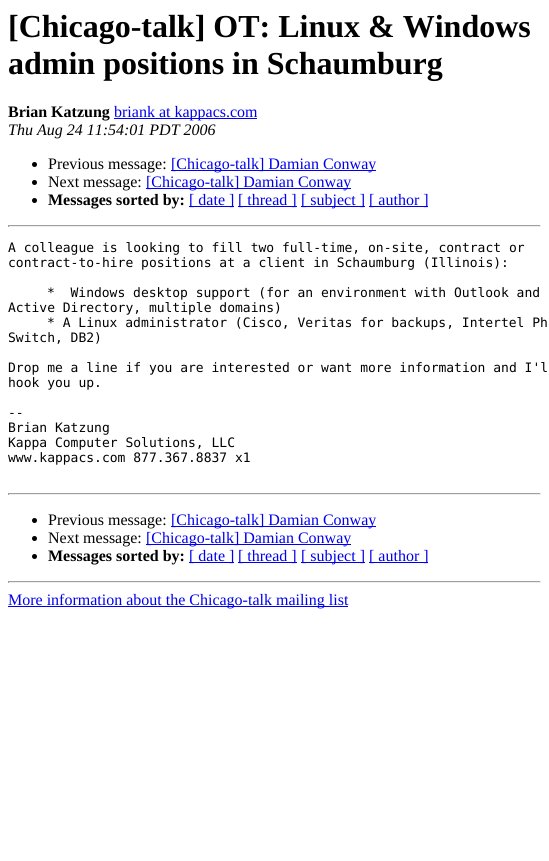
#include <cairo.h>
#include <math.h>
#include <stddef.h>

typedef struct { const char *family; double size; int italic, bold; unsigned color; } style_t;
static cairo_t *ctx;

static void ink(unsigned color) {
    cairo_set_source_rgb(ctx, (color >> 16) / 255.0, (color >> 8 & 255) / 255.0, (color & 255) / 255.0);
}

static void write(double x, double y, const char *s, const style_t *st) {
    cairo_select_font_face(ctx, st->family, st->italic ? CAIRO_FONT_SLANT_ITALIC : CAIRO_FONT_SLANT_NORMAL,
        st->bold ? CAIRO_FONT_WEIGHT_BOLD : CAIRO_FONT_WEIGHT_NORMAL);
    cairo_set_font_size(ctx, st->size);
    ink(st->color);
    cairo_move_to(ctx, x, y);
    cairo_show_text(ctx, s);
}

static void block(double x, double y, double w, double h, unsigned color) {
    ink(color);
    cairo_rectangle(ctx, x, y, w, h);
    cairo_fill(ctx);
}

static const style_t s1 = {"Liberation Serif", 32, 0, 1, 0x000000};
static const style_t s2 = {"Liberation Serif", 16, 0, 1, 0x000000};
static const style_t s3 = {"Liberation Serif", 16, 0, 0, 0x0000ee};
static const style_t s4 = {"Liberation Serif", 16, 1, 0, 0x000000};
static const style_t s5 = {"Liberation Serif", 16, 0, 0, 0x000000};
static const style_t s6 = {"DejaVu Sans Mono", 13, 0, 0, 0x000000};

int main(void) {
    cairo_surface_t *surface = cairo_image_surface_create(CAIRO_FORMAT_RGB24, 549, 861);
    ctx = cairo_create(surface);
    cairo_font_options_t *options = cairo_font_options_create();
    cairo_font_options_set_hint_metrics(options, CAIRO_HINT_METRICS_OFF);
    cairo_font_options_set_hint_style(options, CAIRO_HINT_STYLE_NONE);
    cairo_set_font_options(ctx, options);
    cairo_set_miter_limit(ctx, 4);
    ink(0xffffff);
    cairo_paint(ctx);
    write(8, 37, "[Chicago-talk] OT: Linux & Windows", &s1);
    write(8, 74, "admin positions in Schaumburg", &s1);
    write(8, 117, "Brian Katzung", &s2);
    block(114, 118, 143, 1, 0x0000ee);
    write(114, 117, "briank at kappacs.com", &s3);
    write(8, 135, "Thu Aug 24 11:54:01 PDT 2006", &s4);
    cairo_new_path(ctx);
    cairo_arc(ctx, 34.5, 164.5, 2.5, 0, 2 * M_PI);
    cairo_fill(ctx);
    write(48, 169, "Previous message:", &s5);
    block(171, 170, 205, 1, 0x0000ee);
    write(171, 169, "[Chicago-talk] Damian Conway", &s3);
    ink(0x000000);
    cairo_new_path(ctx);
    cairo_arc(ctx, 34.5, 182.5, 2.5, 0, 2 * M_PI);
    cairo_fill(ctx);
    write(48, 187, "Next message:", &s5);
    block(146, 188, 205, 1, 0x0000ee);
    write(146, 187, "[Chicago-talk] Damian Conway", &s3);
    ink(0x000000);
    cairo_new_path(ctx);
    cairo_arc(ctx, 34.5, 200.5, 2.5, 0, 2 * M_PI);
    cairo_fill(ctx);
    write(48, 205, "Messages sorted by:", &s2);
    block(189, 206, 45, 1, 0x0000ee);
    write(189, 205, "[ date ]", &s3);
    block(238, 206, 59, 1, 0x0000ee);
    write(238, 205, "[ thread ]", &s3);
    block(301, 206, 64, 1, 0x0000ee);
    write(301, 205, "[ subject ]", &s3);
    block(369, 206, 59, 1, 0x0000ee);
    write(369, 205, "[ author ]", &s3);
    block(8, 225, 533, 1, 0x9f9f9f);
    block(540, 225, 1, 2, 0xeeeeee);
    block(8, 226, 533, 1, 0xeeeeee);
    block(8, 225, 1, 2, 0x9f9f9f);
    write(8, 252, "A colleague is looking to fill two full-time, on-site, contract or", &s6);
    write(8, 267, "contract-to-hire positions at a client in Schaumburg (Illinois):", &s6);
    write(47, 297, "*  Windows desktop support (for an environment with Outlook and", &s6);
    write(8, 312, "Active Directory, multiple domains)", &s6);
    write(47, 327, "* A Linux administrator (Cisco, Veritas for backups, Intertel Ph", &s6);
    write(8, 342, "Switch, DB2)", &s6);
    write(8, 372, "Drop me a line if you are interested or want more information and I'l", &s6);
    write(8, 387, "hook you up.", &s6);
    write(8, 417, "--", &s6);
    write(8, 432, "Brian Katzung", &s6);
    write(8, 447, "Kappa Computer Solutions, LLC", &s6);
    write(8, 462, "www.kappacs.com 877.367.8837 x1", &s6);
    block(8, 493, 533, 1, 0x9f9f9f);
    block(540, 493, 1, 2, 0xeeeeee);
    block(8, 494, 533, 1, 0xeeeeee);
    block(8, 493, 1, 2, 0x9f9f9f);
    ink(0x000000);
    cairo_new_path(ctx);
    cairo_arc(ctx, 34.5, 520.5, 2.5, 0, 2 * M_PI);
    cairo_fill(ctx);
    write(48, 525, "Previous message:", &s5);
    block(171, 526, 205, 1, 0x0000ee);
    write(171, 525, "[Chicago-talk] Damian Conway", &s3);
    ink(0x000000);
    cairo_new_path(ctx);
    cairo_arc(ctx, 34.5, 538.5, 2.5, 0, 2 * M_PI);
    cairo_fill(ctx);
    write(48, 543, "Next message:", &s5);
    block(146, 544, 205, 1, 0x0000ee);
    write(146, 543, "[Chicago-talk] Damian Conway", &s3);
    ink(0x000000);
    cairo_new_path(ctx);
    cairo_arc(ctx, 34.5, 556.5, 2.5, 0, 2 * M_PI);
    cairo_fill(ctx);
    write(48, 561, "Messages sorted by:", &s2);
    block(189, 562, 45, 1, 0x0000ee);
    write(189, 561, "[ date ]", &s3);
    block(238, 562, 59, 1, 0x0000ee);
    write(238, 561, "[ thread ]", &s3);
    block(301, 562, 64, 1, 0x0000ee);
    write(301, 561, "[ subject ]", &s3);
    block(369, 562, 59, 1, 0x0000ee);
    write(369, 561, "[ author ]", &s3);
    block(8, 581, 533, 1, 0x9f9f9f);
    block(540, 581, 1, 2, 0xeeeeee);
    block(8, 582, 533, 1, 0xeeeeee);
    block(8, 581, 1, 2, 0x9f9f9f);
    block(8, 606, 340, 1, 0x0000ee);
    write(8, 605, "More information about the Chicago-talk mailing list", &s3);
    cairo_surface_write_to_png(surface, "screenshot.png");
    cairo_font_options_destroy(options);
    cairo_destroy(ctx);
    cairo_surface_destroy(surface);
    return 0;
}
